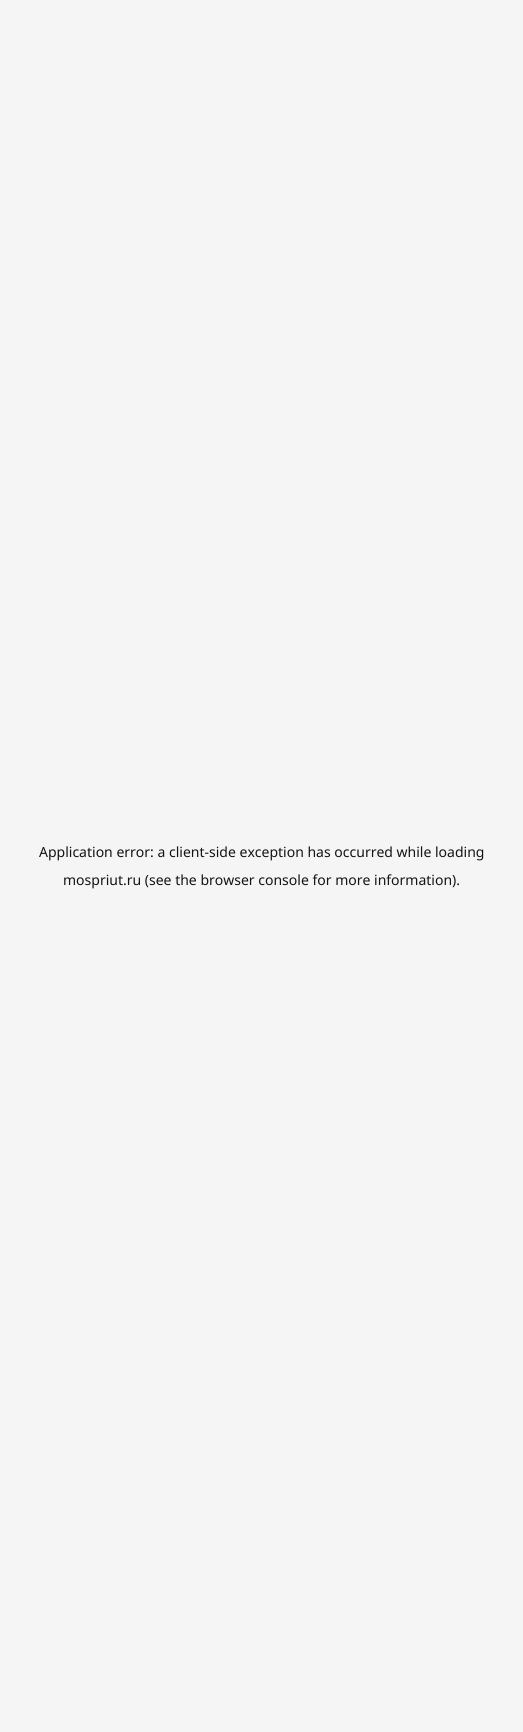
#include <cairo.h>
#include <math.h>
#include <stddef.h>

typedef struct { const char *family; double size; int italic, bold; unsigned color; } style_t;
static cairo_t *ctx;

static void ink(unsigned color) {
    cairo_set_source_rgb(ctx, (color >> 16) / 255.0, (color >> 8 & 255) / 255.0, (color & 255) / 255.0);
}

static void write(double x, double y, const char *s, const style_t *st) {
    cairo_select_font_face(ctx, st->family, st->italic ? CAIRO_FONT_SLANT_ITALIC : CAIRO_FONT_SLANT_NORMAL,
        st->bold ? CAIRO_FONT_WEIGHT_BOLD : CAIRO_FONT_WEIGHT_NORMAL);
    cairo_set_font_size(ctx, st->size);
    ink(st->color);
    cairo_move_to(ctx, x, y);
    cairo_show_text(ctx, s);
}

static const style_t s1 = {"Noto Sans", 14, 0, 0, 0x141414};

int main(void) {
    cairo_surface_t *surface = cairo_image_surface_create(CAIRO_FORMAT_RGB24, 523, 1732);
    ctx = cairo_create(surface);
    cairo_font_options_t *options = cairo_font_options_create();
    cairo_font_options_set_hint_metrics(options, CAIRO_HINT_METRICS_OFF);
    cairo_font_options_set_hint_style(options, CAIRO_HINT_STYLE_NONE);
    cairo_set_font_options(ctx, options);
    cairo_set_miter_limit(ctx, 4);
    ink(0xf5f5f5);
    cairo_paint(ctx);
    write(39, 857, "Application error: a client-side exception has occurred while loading", &s1);
    write(63, 885, "mospriut.ru (see the browser console for more information).", &s1);
    cairo_surface_write_to_png(surface, "screenshot.png");
    cairo_font_options_destroy(options);
    cairo_destroy(ctx);
    cairo_surface_destroy(surface);
    return 0;
}
